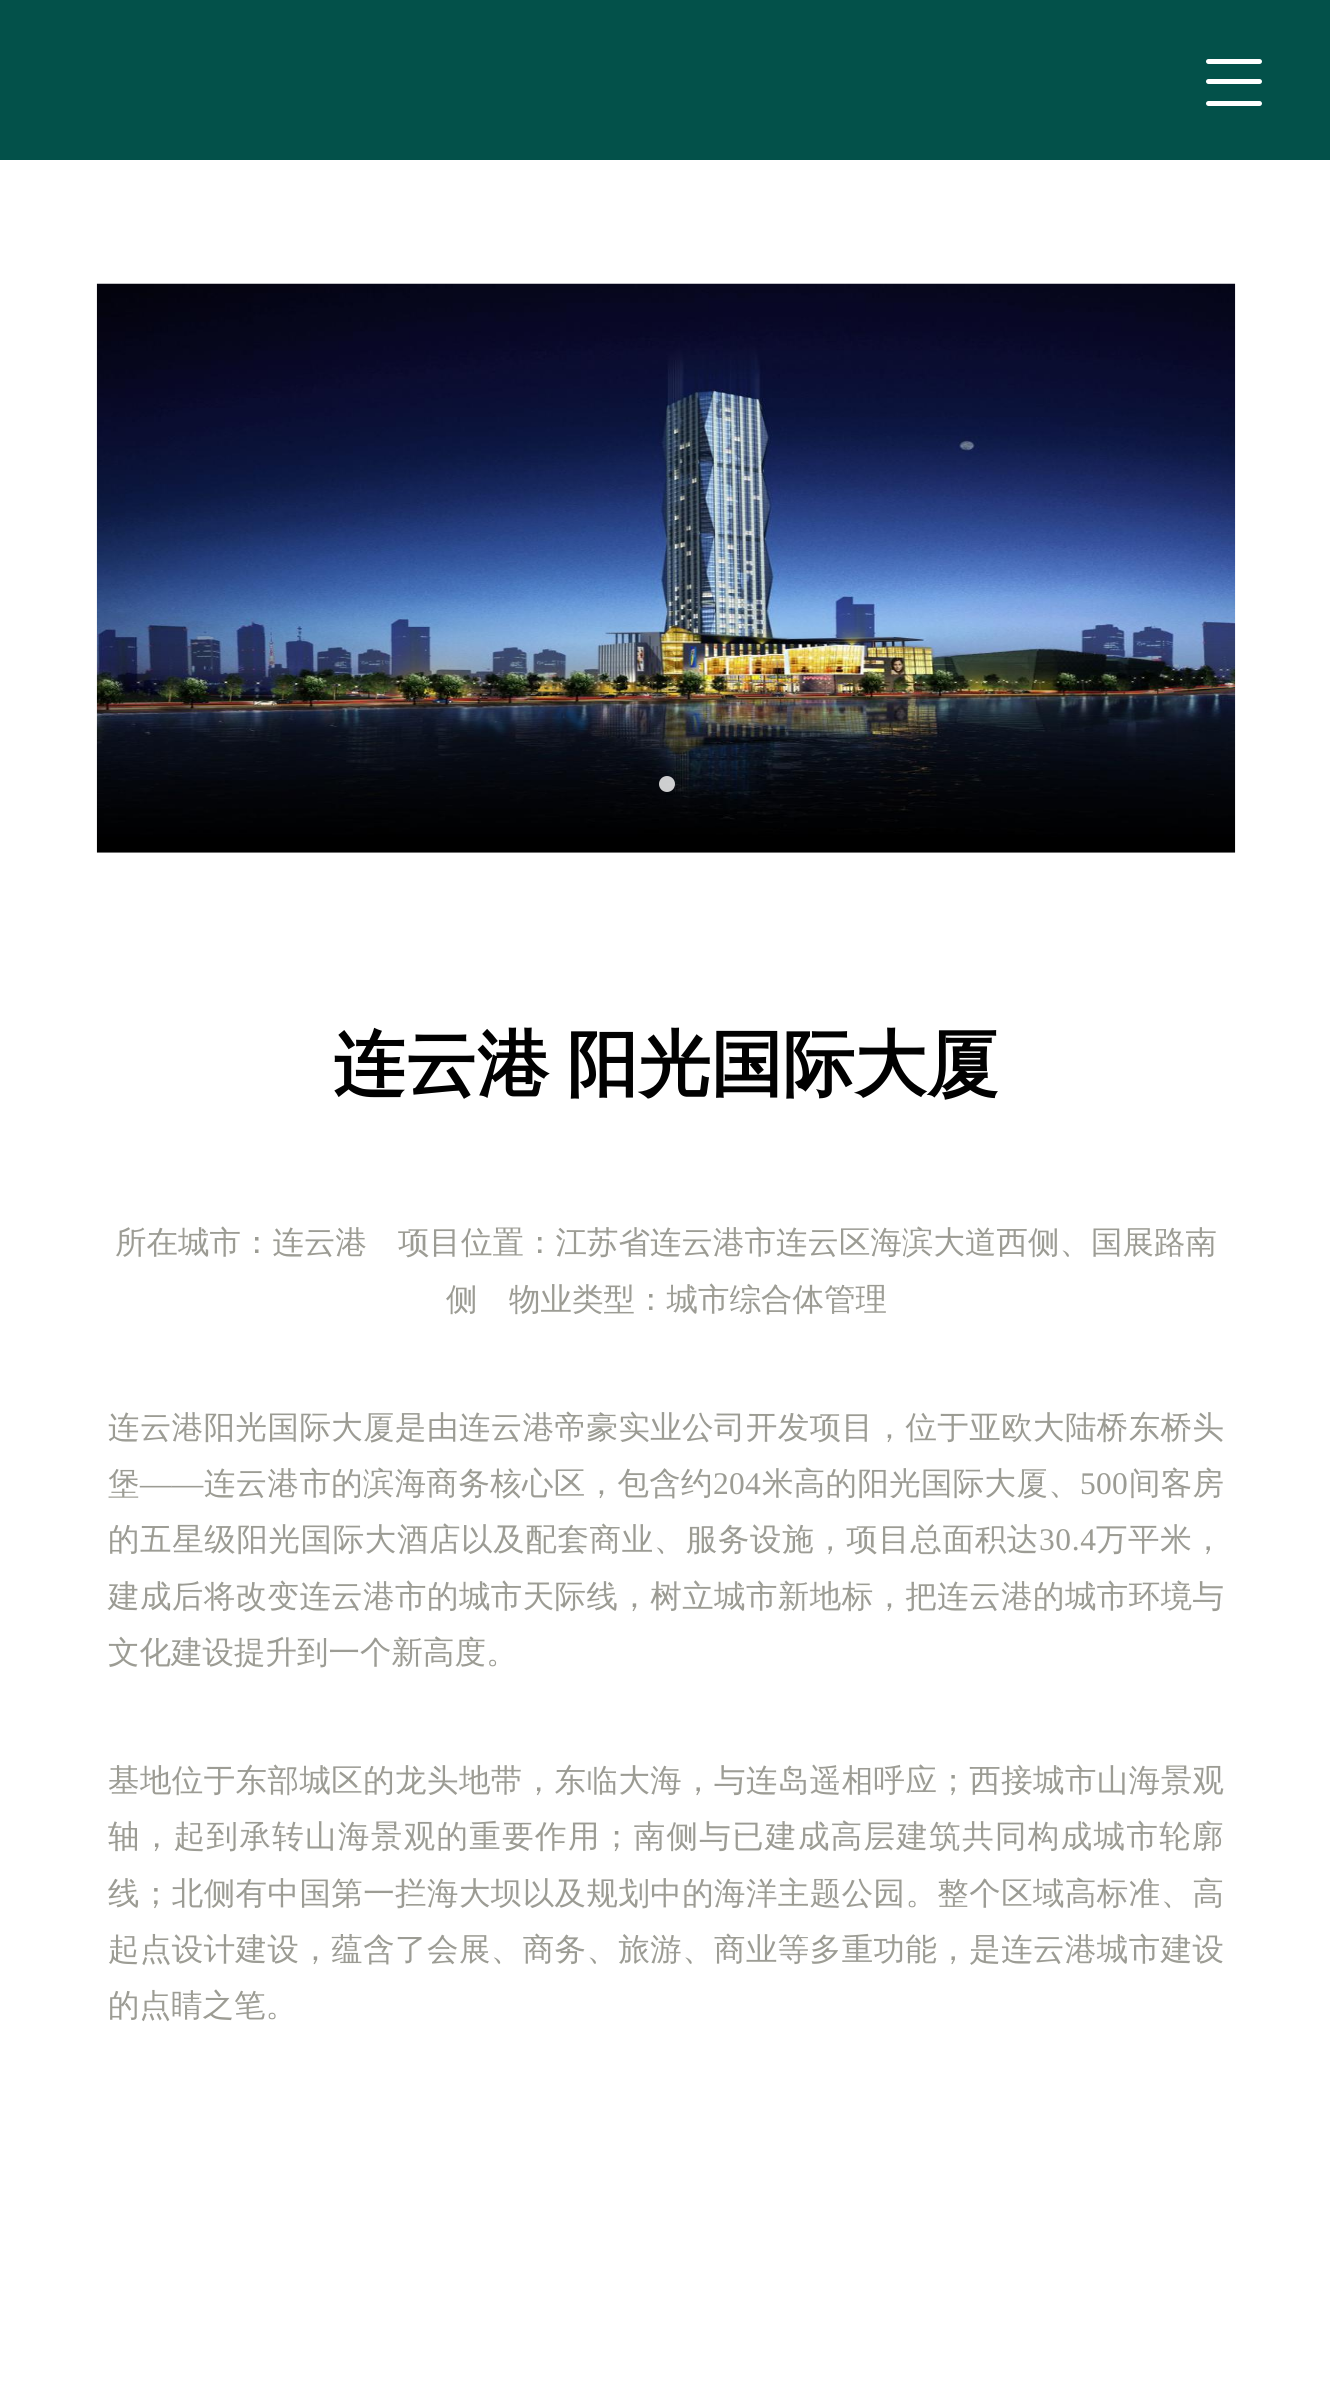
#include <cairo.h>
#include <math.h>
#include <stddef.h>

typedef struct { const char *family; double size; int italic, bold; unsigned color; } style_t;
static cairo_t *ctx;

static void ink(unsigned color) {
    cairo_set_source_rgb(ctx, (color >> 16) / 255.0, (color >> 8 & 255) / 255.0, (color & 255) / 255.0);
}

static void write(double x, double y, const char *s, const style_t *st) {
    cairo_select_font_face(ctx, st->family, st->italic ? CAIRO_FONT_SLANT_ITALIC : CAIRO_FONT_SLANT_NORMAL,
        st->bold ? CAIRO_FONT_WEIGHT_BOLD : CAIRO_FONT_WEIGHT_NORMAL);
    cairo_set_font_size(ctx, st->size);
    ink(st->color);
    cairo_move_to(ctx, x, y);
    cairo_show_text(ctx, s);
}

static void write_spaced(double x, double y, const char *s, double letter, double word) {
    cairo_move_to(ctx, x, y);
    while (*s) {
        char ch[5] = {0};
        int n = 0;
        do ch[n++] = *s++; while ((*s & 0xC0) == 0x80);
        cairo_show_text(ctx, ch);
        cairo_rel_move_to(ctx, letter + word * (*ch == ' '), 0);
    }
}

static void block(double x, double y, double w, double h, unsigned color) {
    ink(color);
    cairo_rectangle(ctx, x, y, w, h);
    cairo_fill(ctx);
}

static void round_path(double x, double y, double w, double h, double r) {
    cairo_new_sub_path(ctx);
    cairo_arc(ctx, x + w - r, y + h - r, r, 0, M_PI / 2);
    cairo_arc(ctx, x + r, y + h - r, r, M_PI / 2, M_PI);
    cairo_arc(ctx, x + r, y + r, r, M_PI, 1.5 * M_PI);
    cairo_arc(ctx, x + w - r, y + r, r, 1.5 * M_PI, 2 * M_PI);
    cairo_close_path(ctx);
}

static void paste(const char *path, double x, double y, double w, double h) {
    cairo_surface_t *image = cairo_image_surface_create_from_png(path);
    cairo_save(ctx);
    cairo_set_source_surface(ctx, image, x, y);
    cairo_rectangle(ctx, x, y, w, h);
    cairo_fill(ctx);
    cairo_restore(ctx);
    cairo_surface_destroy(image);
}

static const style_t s1 = {"WenQuanYi Zen Hei Medium", 31.5, 0, 0, 0x9c9c94};

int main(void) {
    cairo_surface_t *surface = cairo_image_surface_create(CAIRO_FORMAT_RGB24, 1330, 2384);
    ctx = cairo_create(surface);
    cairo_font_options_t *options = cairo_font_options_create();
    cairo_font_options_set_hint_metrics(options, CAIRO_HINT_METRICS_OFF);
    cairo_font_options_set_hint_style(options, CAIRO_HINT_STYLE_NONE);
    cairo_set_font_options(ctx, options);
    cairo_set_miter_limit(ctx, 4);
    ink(0xffffff);
    cairo_paint(ctx);
    block(0, 0, 1330, 160, 0x03514a);
    ink(0xffffff);
    round_path(1206, 59, 56, 5, 2.5);
    cairo_fill(ctx);
    round_path(1206, 79, 56, 5, 2.5);
    cairo_fill(ctx);
    round_path(1206, 101, 56, 5, 2.5);
    cairo_fill(ctx);
    paste("pic1.png", 96, 283, 1140, 570);
    cairo_set_source_rgba(ctx, 1, 1, 1, 0.8);
    cairo_arc(ctx, 667, 784, 8, 0, 2 * M_PI);
    cairo_fill(ctx);
    cairo_select_font_face(ctx, "WenQuanYi Zen Hei", CAIRO_FONT_SLANT_NORMAL, CAIRO_FONT_WEIGHT_BOLD);
    cairo_set_font_size(ctx, 72);
    ink(0x010101);
    write_spaced(333, 1089, "连云港 阳光国际大厦", 0, -4);
    write(115, 1253, "所在城市：连云港", &s1);
    write(398, 1253, "项目位置：江苏省连云港市连云区海滨大道西侧、国展路南", &s1);
    write(446, 1310, "侧", &s1);
    write(509, 1310, "物业类型：城市综合体管理", &s1);
    write_spaced(108, 1438, "连云港阳光国际大厦是由连云港帝豪实业公司开发项目，位于亚欧大陆桥东桥头", 0.4, 0);
    write(108, 1494, "堡", &s1);
    cairo_select_font_face(ctx, "Liberation Serif", CAIRO_FONT_SLANT_NORMAL, CAIRO_FONT_WEIGHT_NORMAL);
    write_spaced(140, 1494, "——", 0.3, 0);
    cairo_select_font_face(ctx, "WenQuanYi Zen Hei Medium", CAIRO_FONT_SLANT_NORMAL, CAIRO_FONT_WEIGHT_NORMAL);
    write_spaced(204, 1494, "连云港市的滨海商务核心区，包含约", 0.3, 0);
    cairo_select_font_face(ctx, "Liberation Serif", CAIRO_FONT_SLANT_NORMAL, CAIRO_FONT_WEIGHT_NORMAL);
    write_spaced(713, 1494, "204", 0.3, 0);
    cairo_select_font_face(ctx, "WenQuanYi Zen Hei Medium", CAIRO_FONT_SLANT_NORMAL, CAIRO_FONT_WEIGHT_NORMAL);
    write_spaced(762, 1494, "米高的阳光国际大厦、", 0.3, 0);
    cairo_select_font_face(ctx, "Liberation Serif", CAIRO_FONT_SLANT_NORMAL, CAIRO_FONT_WEIGHT_NORMAL);
    write_spaced(1080, 1494, "500", 0.3, 0);
    cairo_select_font_face(ctx, "WenQuanYi Zen Hei Medium", CAIRO_FONT_SLANT_NORMAL, CAIRO_FONT_WEIGHT_NORMAL);
    write_spaced(1129, 1494, "间客房", 0.3, 0);
    write_spaced(108, 1550, "的五星级阳光国际大酒店以及配套商业、服务设施，项目总面积达", 0.6, 0);
    cairo_select_font_face(ctx, "Liberation Serif", CAIRO_FONT_SLANT_NORMAL, CAIRO_FONT_WEIGHT_NORMAL);
    write_spaced(1039, 1550, "30.4", 0.6, 0);
    cairo_select_font_face(ctx, "WenQuanYi Zen Hei Medium", CAIRO_FONT_SLANT_NORMAL, CAIRO_FONT_WEIGHT_NORMAL);
    write_spaced(1096, 1550, "万平米，", 0.6, 0);
    write_spaced(108, 1607, "建成后将改变连云港市的城市天际线，树立城市新地标，把连云港的城市环境与", 0.4, 0);
    write(108, 1663, "文化建设提升到一个新高度。", &s1);
    write_spaced(108, 1791, "基地位于东部城区的龙头地带，东临大海，与连岛遥相呼应；西接城市山海景观", 0.4, 0);
    write_spaced(108, 1847, "轴，起到承转山海景观的重要作用；南侧与已建成高层建筑共同构成城市轮廓", 1.35, 0);
    write_spaced(108, 1904, "线；北侧有中国第一拦海大坝以及规划中的海洋主题公园。整个区域高标准、高", 0.4, 0);
    write_spaced(108, 1960, "起点设计建设，蕴含了会展、商务、旅游、商业等多重功能，是连云港城市建设", 0.4, 0);
    write(108, 2016, "的点睛之笔。", &s1);
    cairo_surface_write_to_png(surface, "screenshot.png");
    cairo_font_options_destroy(options);
    cairo_destroy(ctx);
    cairo_surface_destroy(surface);
    return 0;
}
